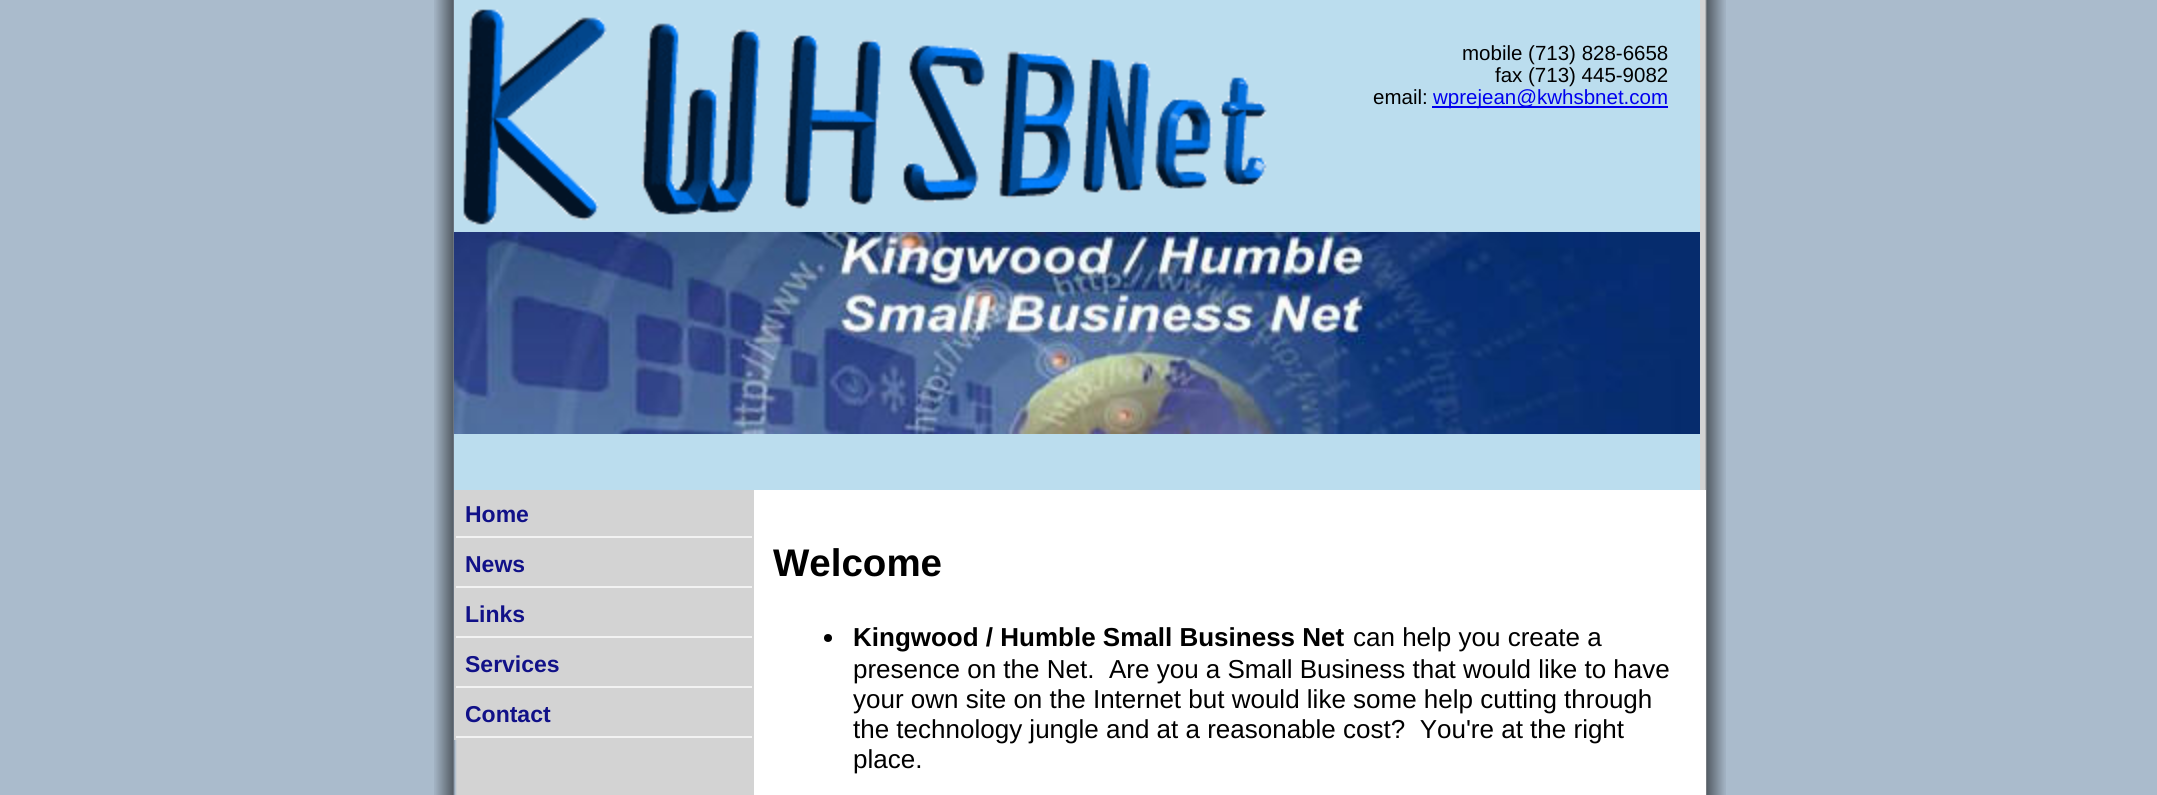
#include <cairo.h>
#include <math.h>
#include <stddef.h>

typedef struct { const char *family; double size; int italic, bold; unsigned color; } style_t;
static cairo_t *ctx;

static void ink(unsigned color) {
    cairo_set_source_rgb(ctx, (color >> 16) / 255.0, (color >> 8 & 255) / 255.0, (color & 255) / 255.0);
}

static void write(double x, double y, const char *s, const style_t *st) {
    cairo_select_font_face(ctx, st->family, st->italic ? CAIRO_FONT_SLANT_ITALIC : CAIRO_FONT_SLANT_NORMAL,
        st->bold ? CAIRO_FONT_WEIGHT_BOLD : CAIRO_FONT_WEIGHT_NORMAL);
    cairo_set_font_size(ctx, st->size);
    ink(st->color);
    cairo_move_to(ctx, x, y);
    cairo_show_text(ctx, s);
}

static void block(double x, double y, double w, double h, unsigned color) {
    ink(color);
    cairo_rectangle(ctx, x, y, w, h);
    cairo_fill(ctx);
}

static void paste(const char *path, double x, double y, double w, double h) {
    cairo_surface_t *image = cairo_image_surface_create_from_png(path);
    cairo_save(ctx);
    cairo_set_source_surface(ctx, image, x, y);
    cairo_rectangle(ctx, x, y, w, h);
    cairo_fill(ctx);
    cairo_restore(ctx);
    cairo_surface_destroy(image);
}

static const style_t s1 = {"Liberation Sans", 20.5, 0, 0, 0x000000};
static const style_t s2 = {"Liberation Sans", 20.5, 0, 0, 0x0000ee};
static const style_t s3 = {"Liberation Sans", 23, 0, 1, 0x111188};
static const style_t s4 = {"Liberation Sans", 38.5, 0, 1, 0x000000};
static const style_t s5 = {"Liberation Sans", 26, 0, 1, 0x000000};
static const style_t s6 = {"Liberation Sans", 26, 0, 0, 0x000000};

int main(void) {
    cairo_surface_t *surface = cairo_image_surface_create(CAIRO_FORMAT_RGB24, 2157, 795);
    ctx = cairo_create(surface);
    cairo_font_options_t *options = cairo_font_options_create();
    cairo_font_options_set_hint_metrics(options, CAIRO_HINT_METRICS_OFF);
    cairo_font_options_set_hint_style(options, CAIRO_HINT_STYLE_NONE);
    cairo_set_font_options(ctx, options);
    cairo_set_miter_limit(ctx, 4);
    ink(0xaabbcc);
    cairo_paint(ctx);
    paste("pic1.png", 434, 0, 1292, 795);
    block(454, 0, 1246, 490, 0xbbddee);
    paste("pic2.png", 463, 9, 804, 216);
    write(1462, 60, "mobile (713) 828-6658", &s1);
    write(1495, 82, "fax (713) 445-9082", &s1);
    write(1373, 104, "email:", &s1);
    block(1432, 106, 236, 2, 0x0000ee);
    write(1433, 104, "wprejean@kwhsbnet.com", &s2);
    paste("pic3.png", 454, 232, 1246, 202);
    block(454, 490, 3, 250, 0xd3d3d3);
    block(456, 536, 296, 2, 0xf2f2f2);
    write(465, 522, "Home", &s3);
    block(456, 586, 296, 2, 0xf2f2f2);
    write(465, 572, "News", &s3);
    block(456, 636, 296, 2, 0xf2f2f2);
    write(465, 622, "Links", &s3);
    block(456, 686, 296, 2, 0xf2f2f2);
    write(465, 672, "Services", &s3);
    block(456, 736, 296, 2, 0xf2f2f2);
    write(465, 722, "Contact", &s3);
    block(754, 490, 952, 305, 0xffffff);
    write(773, 576, "Welcome", &s4);
    cairo_new_path(ctx);
    cairo_arc(ctx, 828, 638, 4, 0, 2 * M_PI);
    cairo_fill(ctx);
    write(853, 646, "Kingwood / Humble Small Business Net", &s5);
    write(1353, 646, "can help you create a", &s6);
    write(853, 678, "presence on the Net.", &s6);
    write(1109, 678, "Are you a Small Business that would like to have", &s6);
    write(853, 708, "your own site on the Internet but would like some help cutting through", &s6);
    write(853, 738, "the technology jungle and at a reasonable cost?  You're at the right", &s6);
    write(853, 768, "place.", &s6);
    cairo_surface_write_to_png(surface, "screenshot.png");
    cairo_font_options_destroy(options);
    cairo_destroy(ctx);
    cairo_surface_destroy(surface);
    return 0;
}
